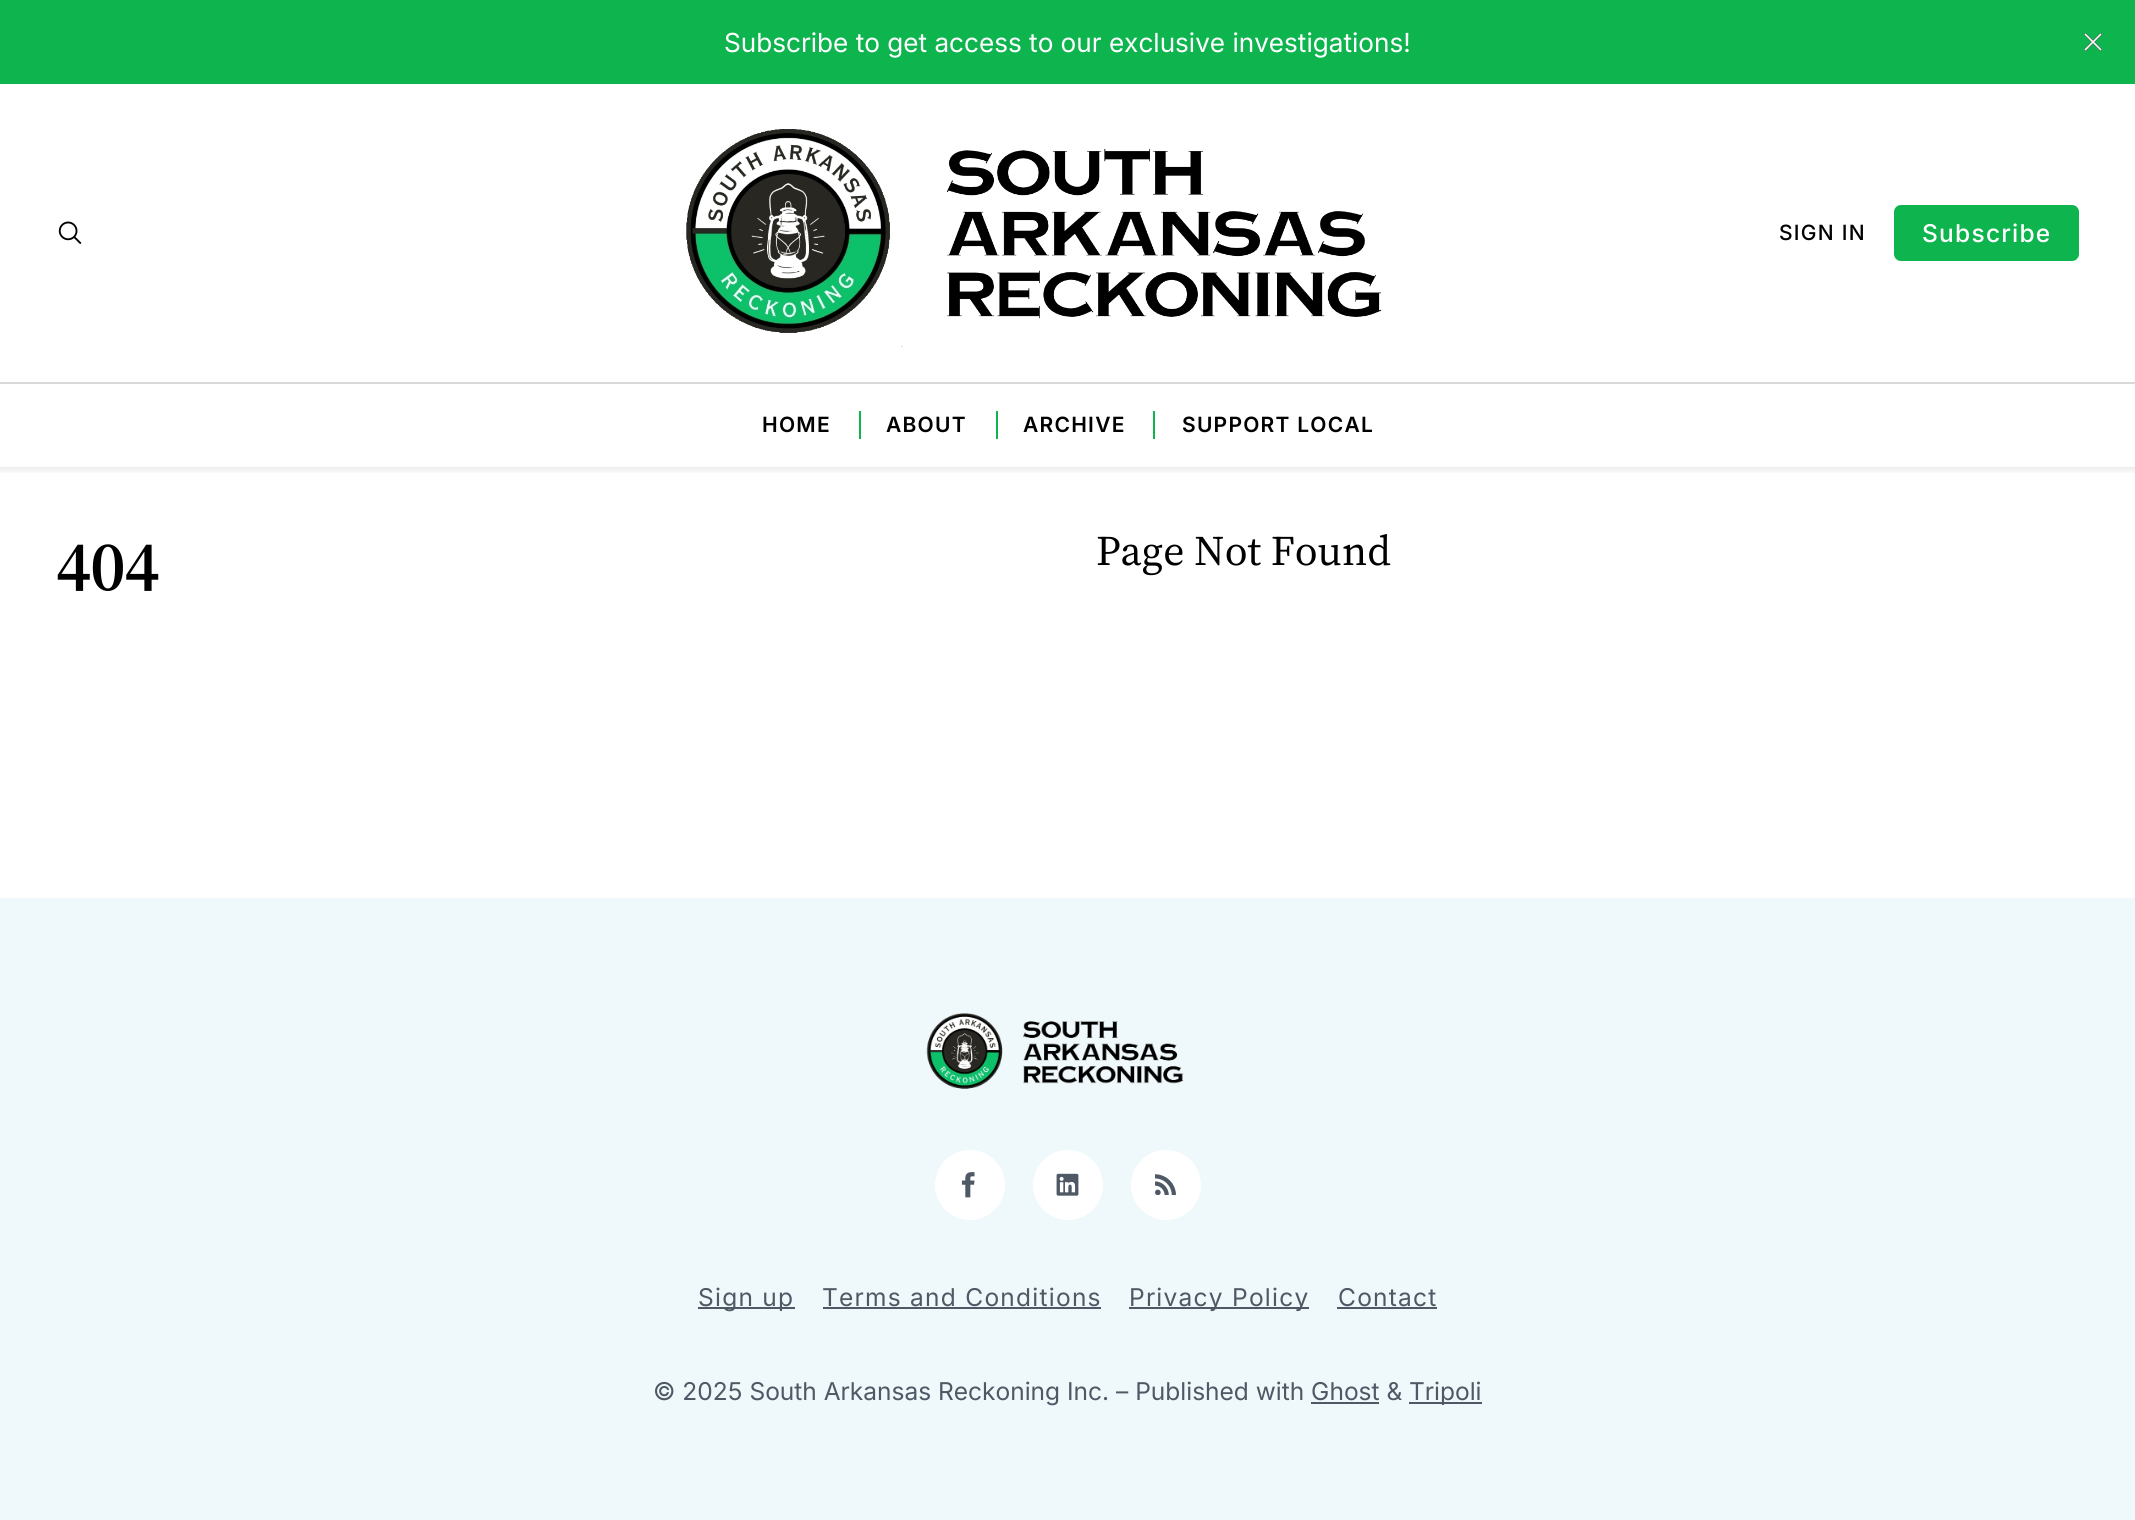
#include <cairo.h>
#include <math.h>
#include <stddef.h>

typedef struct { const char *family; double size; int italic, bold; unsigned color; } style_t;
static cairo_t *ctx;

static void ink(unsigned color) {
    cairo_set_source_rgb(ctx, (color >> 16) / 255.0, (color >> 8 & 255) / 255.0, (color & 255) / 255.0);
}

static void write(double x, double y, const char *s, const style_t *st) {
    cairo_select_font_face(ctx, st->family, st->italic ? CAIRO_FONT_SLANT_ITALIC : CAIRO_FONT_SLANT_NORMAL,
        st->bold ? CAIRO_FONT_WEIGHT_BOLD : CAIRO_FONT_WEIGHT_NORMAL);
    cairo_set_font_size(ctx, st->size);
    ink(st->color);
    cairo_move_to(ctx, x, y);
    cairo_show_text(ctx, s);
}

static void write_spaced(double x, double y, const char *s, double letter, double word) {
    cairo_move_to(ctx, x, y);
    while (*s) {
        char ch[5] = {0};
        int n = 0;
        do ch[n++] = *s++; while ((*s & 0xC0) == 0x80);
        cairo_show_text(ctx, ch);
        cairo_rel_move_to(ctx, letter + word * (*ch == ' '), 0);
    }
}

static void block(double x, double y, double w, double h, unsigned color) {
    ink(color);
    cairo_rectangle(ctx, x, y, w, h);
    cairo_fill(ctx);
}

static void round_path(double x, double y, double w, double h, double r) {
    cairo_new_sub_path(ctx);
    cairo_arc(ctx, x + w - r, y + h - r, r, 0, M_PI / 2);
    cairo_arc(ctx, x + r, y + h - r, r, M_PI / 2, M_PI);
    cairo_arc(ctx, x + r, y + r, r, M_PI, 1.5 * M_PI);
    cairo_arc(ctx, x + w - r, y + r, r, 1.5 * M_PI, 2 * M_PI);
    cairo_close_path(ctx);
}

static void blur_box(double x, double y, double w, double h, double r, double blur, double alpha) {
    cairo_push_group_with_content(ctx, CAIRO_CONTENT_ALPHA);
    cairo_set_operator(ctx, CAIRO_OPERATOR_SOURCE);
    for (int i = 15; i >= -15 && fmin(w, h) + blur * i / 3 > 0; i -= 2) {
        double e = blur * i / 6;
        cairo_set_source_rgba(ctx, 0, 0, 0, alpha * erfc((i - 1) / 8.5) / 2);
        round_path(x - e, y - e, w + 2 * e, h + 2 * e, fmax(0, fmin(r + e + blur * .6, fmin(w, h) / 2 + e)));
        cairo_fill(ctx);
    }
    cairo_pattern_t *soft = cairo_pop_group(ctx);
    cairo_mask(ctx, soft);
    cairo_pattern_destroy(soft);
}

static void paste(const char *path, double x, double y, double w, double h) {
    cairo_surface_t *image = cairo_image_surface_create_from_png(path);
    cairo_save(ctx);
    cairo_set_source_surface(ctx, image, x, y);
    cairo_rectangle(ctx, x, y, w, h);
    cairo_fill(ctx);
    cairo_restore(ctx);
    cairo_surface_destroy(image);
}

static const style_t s1 = {"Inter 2", 26.25, 0, 0, 0xffffff};
static const style_t s2 = {"Source Serif 4", 42, 0, 0, 0x000000};
static const style_t s3 = {"Inter", 24.5, 0, 0, 0x4e5965};

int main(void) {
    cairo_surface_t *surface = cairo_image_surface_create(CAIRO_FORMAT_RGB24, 2135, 1520);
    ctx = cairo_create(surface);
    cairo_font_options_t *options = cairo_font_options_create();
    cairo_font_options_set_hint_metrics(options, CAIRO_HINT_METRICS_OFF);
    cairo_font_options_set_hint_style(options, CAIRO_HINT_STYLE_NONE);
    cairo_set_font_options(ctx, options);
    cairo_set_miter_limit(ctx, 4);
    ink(0xffffff);
    cairo_paint(ctx);
    cairo_save(ctx);
    cairo_rectangle(ctx, 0, 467, 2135, 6);
    cairo_clip(ctx);
    ink(0x000000);
    blur_box(-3, 81, 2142, 390, 0, 3.5, 0.08);
    cairo_restore(ctx);
    block(0, 0, 2135, 84, 0x0eb44d);
    write(724, 52, "Subscribe to get access to our exclusive investigations!", &s1);
    paste("pic1.png", 2084, 33, 18, 18);
    block(0, 382, 2135, 2, 0xd9d9d9);
    paste("pic2.png", 58, 221, 24, 23);
    paste("pic3.png", 686, 129, 696, 218);
    cairo_select_font_face(ctx, "Inter Medium", CAIRO_FONT_SLANT_NORMAL, CAIRO_FONT_WEIGHT_NORMAL);
    cairo_set_font_size(ctx, 21);
    ink(0x000000);
    write_spaced(1779, 240, "SIGN IN", 1.25, 0);
    ink(0x0eb44d);
    round_path(1894, 205, 185, 56, 7);
    cairo_fill(ctx);
    cairo_set_font_size(ctx, 24.5);
    ink(0xffffff);
    write_spaced(1922, 242, "Subscribe", 1.25, 0);
    cairo_select_font_face(ctx, "Inter SemiBold", CAIRO_FONT_SLANT_NORMAL, CAIRO_FONT_WEIGHT_NORMAL);
    cairo_set_font_size(ctx, 21);
    ink(0x000000);
    write_spaced(762, 432, "HOME", 1.25, 0);
    block(859, 411, 2, 28, 0x0eb44d);
    ink(0x000000);
    write_spaced(886, 432, "ABOUT", 1.25, 0);
    block(996, 411, 2, 28, 0x0eb44d);
    ink(0x000000);
    write_spaced(1023, 432, "ARCHIVE", 1.25, 0);
    block(1153, 411, 2, 28, 0x0eb44d);
    ink(0x000000);
    write_spaced(1182, 432, "SUPPORT LOCAL", 1.25, 0);
    cairo_select_font_face(ctx, "Source Serif 4 SemiBold", CAIRO_FONT_SLANT_NORMAL, CAIRO_FONT_WEIGHT_NORMAL);
    cairo_set_font_size(ctx, 70);
    write_spaced(56, 590, "404", -1, 0);
    write(1096, 565, "Page Not Found", &s2);
    block(0, 898, 2135, 622, 0xeff8fa);
    paste("pic4.png", 926, 1013, 258, 81);
    ink(0xffffff);
    cairo_arc(ctx, 970, 1185, 35, 0, 2 * M_PI);
    cairo_fill(ctx);
    paste("pic5.png", 961, 1172, 14, 26);
    cairo_arc(ctx, 1068, 1185, 35, 0, 2 * M_PI);
    cairo_fill(ctx);
    paste("pic6.png", 1056, 1173, 23, 23);
    cairo_arc(ctx, 1166, 1185, 35, 0, 2 * M_PI);
    cairo_fill(ctx);
    paste("pic7.png", 1155, 1174, 21, 21);
    block(698, 1307, 97, 2, 0x4e5965);
    cairo_select_font_face(ctx, "Inter", CAIRO_FONT_SLANT_NORMAL, CAIRO_FONT_WEIGHT_NORMAL);
    cairo_set_font_size(ctx, 24.5);
    write_spaced(698, 1306, "Sign up", 1.25, 0);
    write_spaced(822, 1306, "Terms and Conditions", 1.25, 0);
    block(823, 1307, 278, 2, 0x4e5965);
    block(1129, 1307, 180, 2, 0x4e5965);
    write_spaced(1129, 1306, "Privacy Policy", 1.25, 0);
    write_spaced(1338, 1306, "Contact", 1.25, 0);
    block(1337, 1307, 100, 2, 0x4e5965);
    write(653, 1400, "© 2025 South Arkansas Reckoning Inc. – Published with Ghost &", &s3);
    block(1409, 1402, 73, 2, 0x4e5965);
    write(1409, 1400, "Tripoli", &s3);
    block(1311, 1402, 68, 2, 0x4e5965);
    cairo_surface_write_to_png(surface, "screenshot.png");
    cairo_font_options_destroy(options);
    cairo_destroy(ctx);
    cairo_surface_destroy(surface);
    return 0;
}
